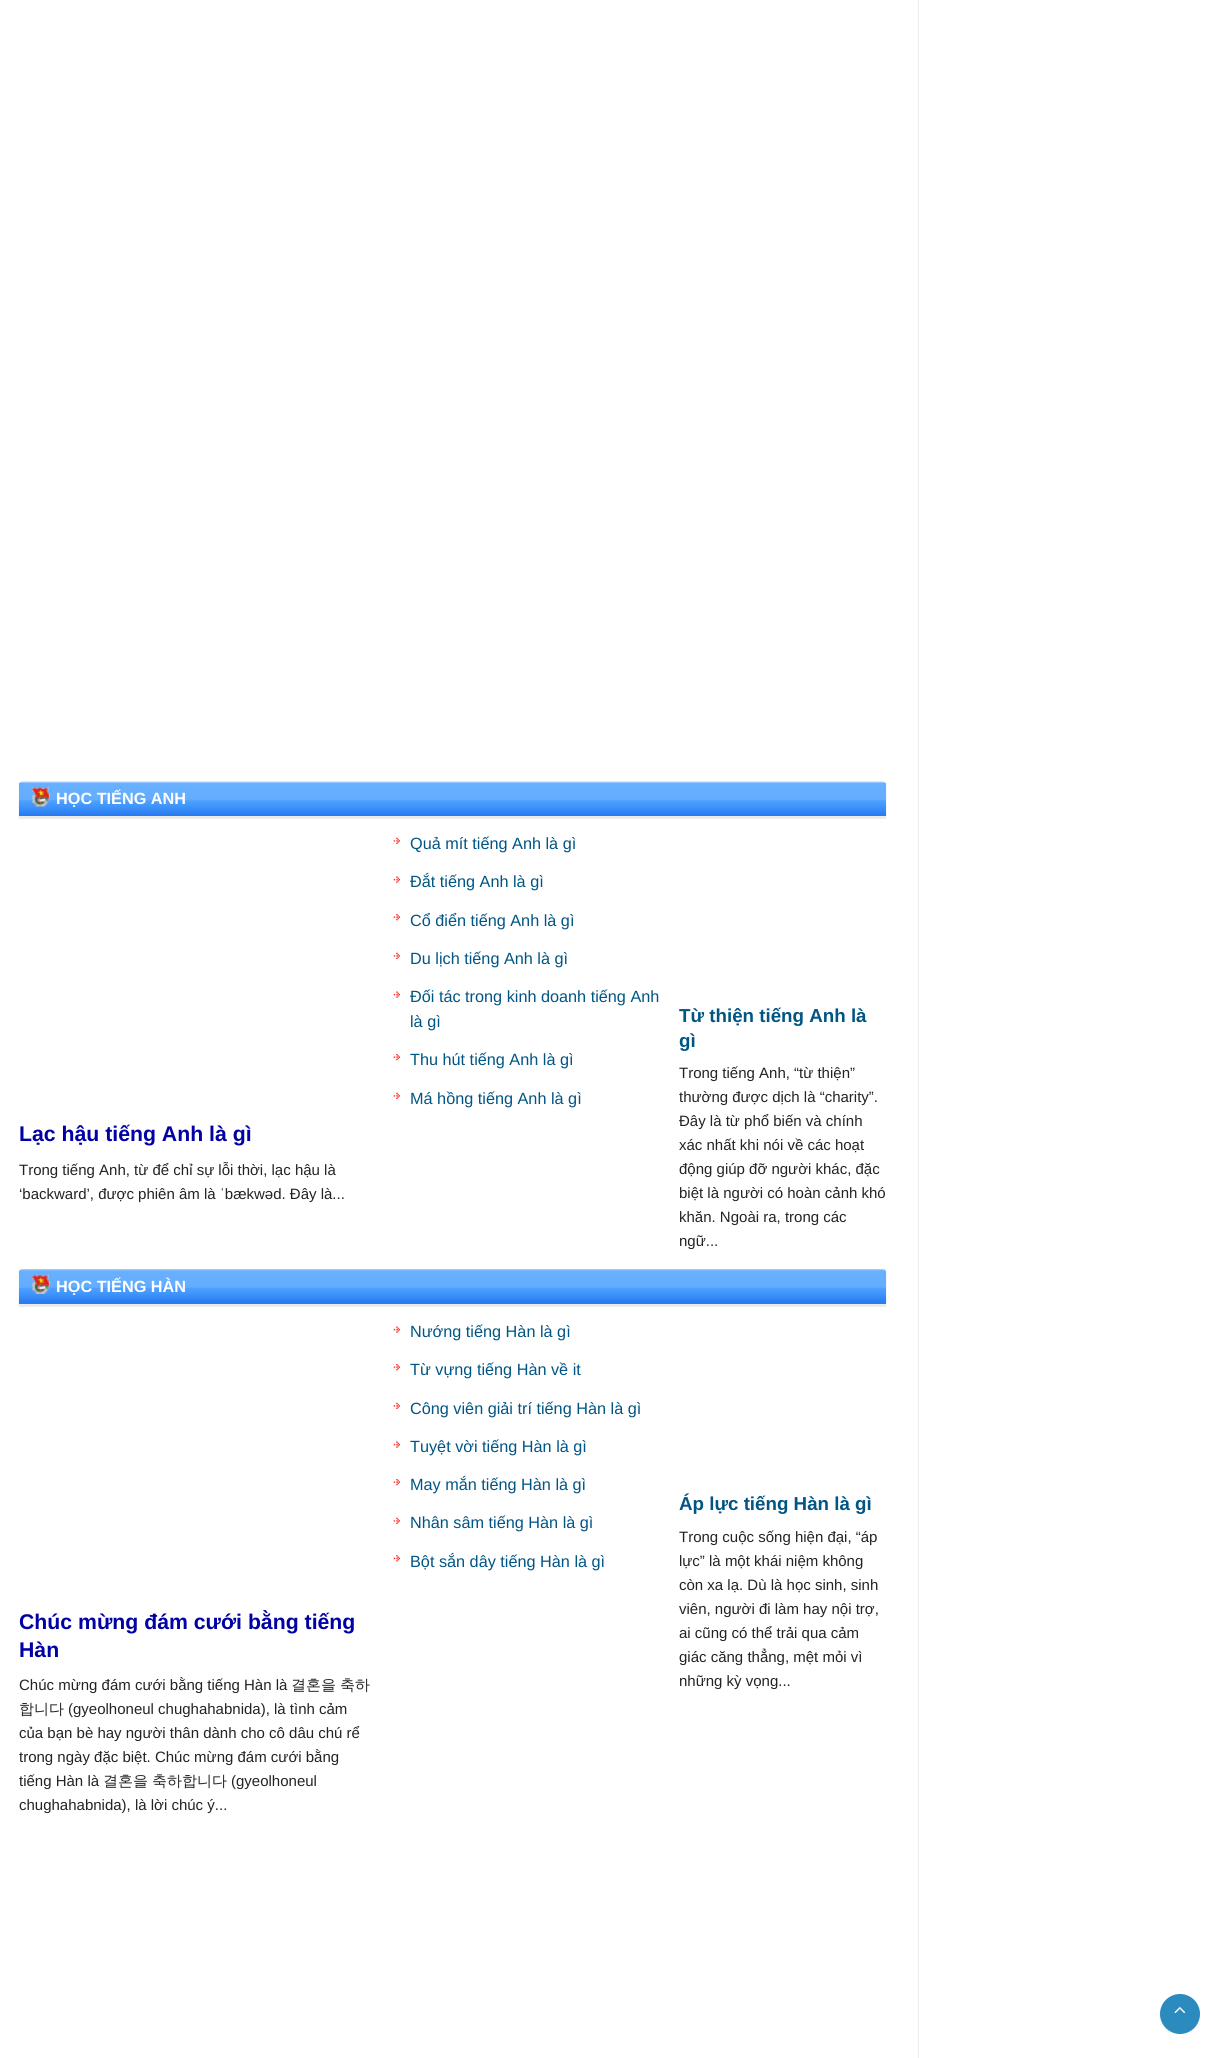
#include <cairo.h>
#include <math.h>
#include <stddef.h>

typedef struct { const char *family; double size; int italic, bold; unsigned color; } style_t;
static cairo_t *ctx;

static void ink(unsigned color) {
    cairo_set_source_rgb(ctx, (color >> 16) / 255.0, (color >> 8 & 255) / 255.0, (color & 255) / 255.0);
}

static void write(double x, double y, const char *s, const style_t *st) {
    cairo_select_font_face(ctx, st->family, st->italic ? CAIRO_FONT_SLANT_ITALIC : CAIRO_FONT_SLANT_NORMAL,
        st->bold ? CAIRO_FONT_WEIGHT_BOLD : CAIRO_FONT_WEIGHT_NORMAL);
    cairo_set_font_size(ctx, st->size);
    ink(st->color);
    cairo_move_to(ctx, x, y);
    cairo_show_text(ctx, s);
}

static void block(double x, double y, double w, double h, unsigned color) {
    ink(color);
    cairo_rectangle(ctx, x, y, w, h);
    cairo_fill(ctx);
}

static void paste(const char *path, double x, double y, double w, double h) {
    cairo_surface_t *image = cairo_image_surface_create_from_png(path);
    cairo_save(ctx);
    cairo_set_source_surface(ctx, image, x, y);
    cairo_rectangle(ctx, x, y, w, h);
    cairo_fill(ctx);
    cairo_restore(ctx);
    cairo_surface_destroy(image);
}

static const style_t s1 = {"Liberation Sans", 16.25, 0, 1, 0xffffff};
static const style_t s2 = {"Liberation Sans", 21.25, 0, 1, 0x0000a5};
static const style_t s3 = {"Liberation Sans", 15, 0, 0, 0x232323};
static const style_t s4 = {"Liberation Sans", 16.25, 0, 0, 0x005584};
static const style_t s5 = {"Liberation Sans", 18.75, 0, 1, 0x005584};
static const style_t s6 = {"WenQuanYi Zen Hei Medium", 15, 0, 0, 0x232323};

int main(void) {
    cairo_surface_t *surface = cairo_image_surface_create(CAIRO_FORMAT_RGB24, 1224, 2058);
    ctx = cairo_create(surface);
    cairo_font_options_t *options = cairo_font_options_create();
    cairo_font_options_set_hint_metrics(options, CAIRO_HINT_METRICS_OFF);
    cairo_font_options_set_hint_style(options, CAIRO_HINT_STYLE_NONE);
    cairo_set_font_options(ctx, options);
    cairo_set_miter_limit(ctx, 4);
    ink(0xffffff);
    cairo_paint(ctx);
    block(918, 0, 1, 2058, 0xececec);
    paste("pic1.png", 18, 781, 869, 38);
    block(19, 816, 867, 3, 0xececec);
    paste("pic2.png", 31, 786, 19, 21);
    write(56, 804, "HỌC TIẾNG ANH", &s1);
    write(19, 1141, "Lạc hậu tiếng Anh là gì", &s2);
    write(19, 1175, "Trong tiếng Anh, từ để chỉ sự lỗi thời, lạc hậu là", &s3);
    write(19, 1199, "‘backward’, được phiên âm là ˈbӕkwəd. Đây là...", &s3);
    paste("pic3.png", 393, 837, 7, 7);
    write(410, 849, "Quả mít tiếng Anh là gì", &s4);
    paste("pic4.png", 393, 876, 7, 7);
    write(410, 887, "Đắt tiếng Anh là gì", &s4);
    paste("pic5.png", 393, 914, 7, 7);
    write(410, 926, "Cổ điển tiếng Anh là gì", &s4);
    paste("pic3.png", 393, 952, 7, 7);
    write(410, 964, "Du lịch tiếng Anh là gì", &s4);
    paste("pic4.png", 393, 991, 7, 7);
    write(410, 1002, "Đối tác trong kinh doanh tiếng Anh", &s4);
    write(410, 1027, "là gì", &s4);
    paste("pic5.png", 393, 1054, 7, 7);
    write(410, 1065, "Thu hút tiếng Anh là gì", &s4);
    paste("pic3.png", 393, 1092, 7, 7);
    write(410, 1104, "Má hồng tiếng Anh là gì", &s4);
    write(679, 1022, "Từ thiện tiếng Anh là", &s5);
    write(679, 1047, "gì", &s5);
    write(679, 1078, "Trong tiếng Anh, “từ thiện”", &s3);
    write(679, 1102, "thường được dịch là “charity”.", &s3);
    write(679, 1126, "Đây là từ phổ biến và chính", &s3);
    write(679, 1150, "xác nhất khi nói về các hoạt", &s3);
    write(679, 1174, "động giúp đỡ người khác, đặc", &s3);
    write(679, 1198, "biệt là người có hoàn cảnh khó", &s3);
    write(679, 1222, "khăn. Ngoài ra, trong các", &s3);
    write(679, 1246, "ngữ...", &s3);
    paste("pic6.png", 18, 1269, 869, 37);
    block(19, 1304, 867, 3, 0xececec);
    paste("pic7.png", 31, 1274, 19, 20);
    write(56, 1292, "HỌC TIẾNG HÀN", &s1);
    paste("pic4.png", 393, 1326, 7, 7);
    write(410, 1337, "Nướng tiếng Hàn là gì", &s4);
    paste("pic5.png", 393, 1364, 7, 7);
    write(410, 1375, "Từ vựng tiếng Hàn về it", &s4);
    paste("pic8.png", 393, 1402, 7, 7);
    write(410, 1414, "Công viên giải trí tiếng Hàn là gì", &s4);
    paste("pic4.png", 393, 1441, 7, 7);
    write(410, 1452, "Tuyệt vời tiếng Hàn là gì", &s4);
    paste("pic5.png", 393, 1479, 7, 7);
    write(410, 1490, "May mắn tiếng Hàn là gì", &s4);
    paste("pic3.png", 393, 1517, 7, 7);
    write(410, 1528, "Nhân sâm tiếng Hàn là gì", &s4);
    paste("pic9.png", 393, 1555, 7, 7);
    write(410, 1567, "Bột sắn dây tiếng Hàn là gì", &s4);
    write(19, 1629, "Chúc mừng đám cưới bằng tiếng", &s2);
    write(19, 1657, "Hàn", &s2);
    write(19, 1690, "Chúc mừng đám cưới bằng tiếng Hàn là", &s3);
    write(291, 1690, "결혼을", &s6);
    write(340, 1690, "축하", &s6);
    write(19, 1714, "합니다", &s6);
    write(68, 1714, "(gyeolhoneul chughahabnida), là tình cảm", &s3);
    write(19, 1738, "của bạn bè hay người thân dành cho cô dâu chú rể", &s3);
    write(19, 1762, "trong ngày đặc biệt. Chúc mừng đám cưới bằng", &s3);
    write(19, 1786, "tiếng Hàn là", &s3);
    write(103, 1786, "결혼을", &s6);
    write(152, 1786, "축하합니다", &s6);
    write(231, 1786, "(gyeolhoneul", &s3);
    write(19, 1810, "chughahabnida), là lời chúc ý...", &s3);
    write(679, 1510, "Áp lực tiếng Hàn là gì", &s5);
    write(679, 1542, "Trong cuộc sống hiện đại, “áp", &s3);
    write(679, 1566, "lực” là một khái niệm không", &s3);
    write(679, 1590, "còn xa lạ. Dù là học sinh, sinh", &s3);
    write(679, 1614, "viên, người đi làm hay nội trợ,", &s3);
    write(679, 1638, "ai cũng có thể trải qua cảm", &s3);
    write(679, 1662, "giác căng thẳng, mệt mỏi vì", &s3);
    write(679, 1686, "những kỳ vọng...", &s3);
    ink(0x2c8bbe);
    cairo_new_path(ctx);
    cairo_arc(ctx, 1180, 2014, 20, 0, 2 * M_PI);
    cairo_fill(ctx);
    paste("pic10.png", 1174, 2007, 12, 7);
    cairo_surface_write_to_png(surface, "screenshot.png");
    cairo_font_options_destroy(options);
    cairo_destroy(ctx);
    cairo_surface_destroy(surface);
    return 0;
}
